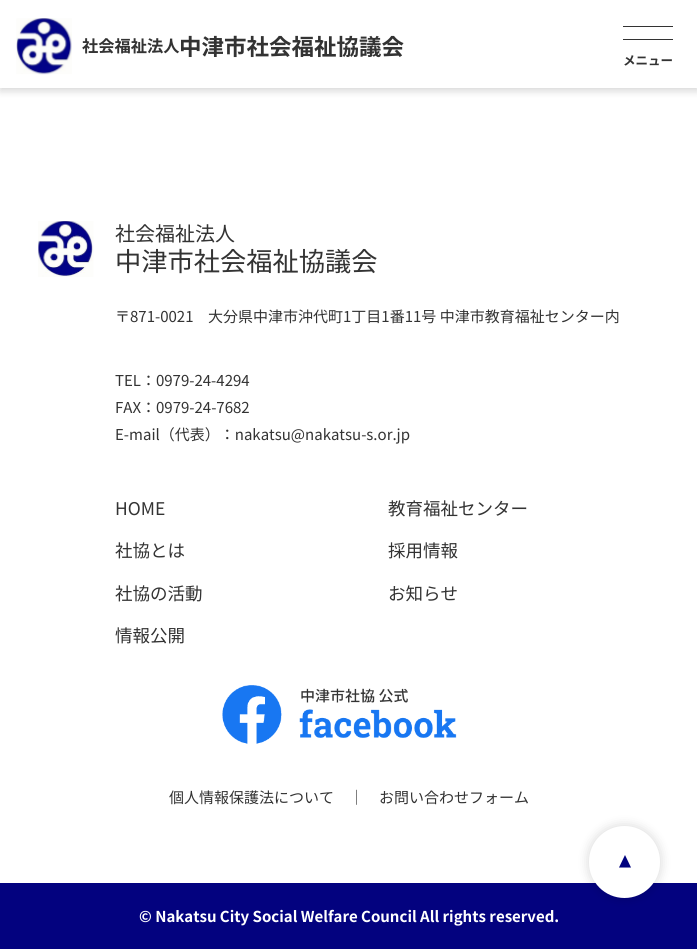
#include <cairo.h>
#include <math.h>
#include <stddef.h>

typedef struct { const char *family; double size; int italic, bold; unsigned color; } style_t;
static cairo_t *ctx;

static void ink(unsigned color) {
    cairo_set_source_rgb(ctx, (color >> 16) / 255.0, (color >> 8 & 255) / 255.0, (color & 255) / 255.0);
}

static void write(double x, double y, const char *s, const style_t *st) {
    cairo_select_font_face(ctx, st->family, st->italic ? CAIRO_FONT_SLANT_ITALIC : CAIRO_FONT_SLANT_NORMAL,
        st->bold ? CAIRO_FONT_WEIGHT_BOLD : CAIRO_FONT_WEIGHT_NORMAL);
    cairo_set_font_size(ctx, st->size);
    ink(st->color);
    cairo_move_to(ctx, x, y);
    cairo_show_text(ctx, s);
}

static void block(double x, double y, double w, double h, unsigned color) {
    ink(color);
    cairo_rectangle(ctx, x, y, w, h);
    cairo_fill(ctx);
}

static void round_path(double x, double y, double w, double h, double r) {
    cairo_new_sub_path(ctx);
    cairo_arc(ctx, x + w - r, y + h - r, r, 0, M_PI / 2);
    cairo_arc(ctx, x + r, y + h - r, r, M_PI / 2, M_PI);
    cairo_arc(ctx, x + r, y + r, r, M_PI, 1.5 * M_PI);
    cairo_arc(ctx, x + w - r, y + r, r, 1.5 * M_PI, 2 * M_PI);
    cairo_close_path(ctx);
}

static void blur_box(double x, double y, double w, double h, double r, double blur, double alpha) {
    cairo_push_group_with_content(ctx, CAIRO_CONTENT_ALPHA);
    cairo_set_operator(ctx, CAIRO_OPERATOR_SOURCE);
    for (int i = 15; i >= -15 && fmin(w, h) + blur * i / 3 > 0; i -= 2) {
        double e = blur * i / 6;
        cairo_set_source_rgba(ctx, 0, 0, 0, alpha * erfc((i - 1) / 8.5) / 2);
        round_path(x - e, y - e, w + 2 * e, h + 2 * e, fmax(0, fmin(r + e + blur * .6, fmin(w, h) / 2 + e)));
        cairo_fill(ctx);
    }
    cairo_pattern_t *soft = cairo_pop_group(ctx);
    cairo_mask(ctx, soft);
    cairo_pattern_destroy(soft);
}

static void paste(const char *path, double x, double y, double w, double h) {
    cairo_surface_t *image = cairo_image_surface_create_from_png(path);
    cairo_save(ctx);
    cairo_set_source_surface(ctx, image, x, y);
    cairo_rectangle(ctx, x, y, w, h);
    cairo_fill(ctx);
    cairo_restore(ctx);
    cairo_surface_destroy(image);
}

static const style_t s1 = {"Noto Sans JP", 16.25, 0, 1, 0x333333};
static const style_t s2 = {"Noto Sans JP", 22.5, 0, 1, 0x333333};
static const style_t s3 = {"Noto Sans JP", 12.5, 0, 1, 0x333333};
static const style_t s4 = {"Noto Sans JP", 20, 0, 0, 0x333333};
static const style_t s5 = {"Noto Sans JP", 26.25, 0, 0, 0x333333};
static const style_t s6 = {"Noto Sans JP", 15, 0, 0, 0x333333};
static const style_t s7 = {"Noto Sans JP", 17.5, 0, 0, 0x333333};
static const style_t s8 = {"Noto Sans JP", 15, 0, 1, 0xffffff};

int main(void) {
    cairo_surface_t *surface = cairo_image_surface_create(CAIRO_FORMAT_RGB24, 697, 949);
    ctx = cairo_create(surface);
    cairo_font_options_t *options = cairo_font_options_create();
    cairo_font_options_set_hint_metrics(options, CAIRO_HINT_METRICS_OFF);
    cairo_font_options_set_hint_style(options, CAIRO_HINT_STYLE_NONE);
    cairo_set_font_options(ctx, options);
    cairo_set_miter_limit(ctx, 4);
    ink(0xffffff);
    cairo_paint(ctx);
    ink(0x000000);
    blur_box(0, 4, 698, 87, 0, 4, 0.16);
    block(0, 0, 697, 88, 0xffffff);
    paste("pic1.png", 16, 18, 56, 57);
    write(82, 52, "社会福祉法人", &s1);
    write(179, 55, "中津市社会福祉協議会", &s2);
    block(623, 26, 50, 1, 0x333333);
    block(623, 39, 50, 1, 0x333333);
    write(623, 65, "メニュー", &s3);
    paste("pic2.png", 38, 221, 56, 56);
    write(115, 241, "社会福祉法人", &s4);
    write(115, 271, "中津市社会福祉協議会", &s5);
    write(115, 322, "〒871-0021", &s6);
    write(208, 322, "大分県中津市沖代町1丁目1番11号 中津市教育福祉センター内", &s6);
    write(115, 386, "TEL：0979-24-4294", &s6);
    write(115, 413, "FAX：0979-24-7682", &s6);
    write(115, 440, "E-mail（代表）：nakatsu@nakatsu-s.or.jp", &s6);
    write(115, 515, "HOME", &s7);
    write(115, 557, "社協とは", &s7);
    write(115, 600, "社協の活動", &s7);
    write(115, 642, "情報公開", &s7);
    write(388, 515, "教育福祉センター", &s7);
    write(388, 557, "採用情報", &s7);
    write(388, 600, "お知らせ", &s7);
    paste("pic3.png", 222, 685, 235, 59);
    write(169, 803, "個人情報保護法について", &s6);
    write(349, 803, "｜", &s6);
    write(379, 803, "お問い合わせフォーム", &s6);
    block(0, 883, 697, 66, 0x03027f);
    ink(0x000000);
    blur_box(589, 826, 71, 72, 35.5, 6, 0.16);
    ink(0xffffff);
    round_path(589, 826, 71, 72, 35.5);
    cairo_fill(ctx);
    ink(0x00027f);
    cairo_new_path(ctx);
    cairo_move_to(ctx, 631, 867.5);
    cairo_line_to(ctx, 619, 867.5);
    cairo_line_to(ctx, 625, 855);
    cairo_close_path(ctx);
    cairo_fill(ctx);
    write(139, 922, "© Nakatsu City Social Welfare Council All rights reserved.", &s8);
    cairo_surface_write_to_png(surface, "screenshot.png");
    cairo_font_options_destroy(options);
    cairo_destroy(ctx);
    cairo_surface_destroy(surface);
    return 0;
}
